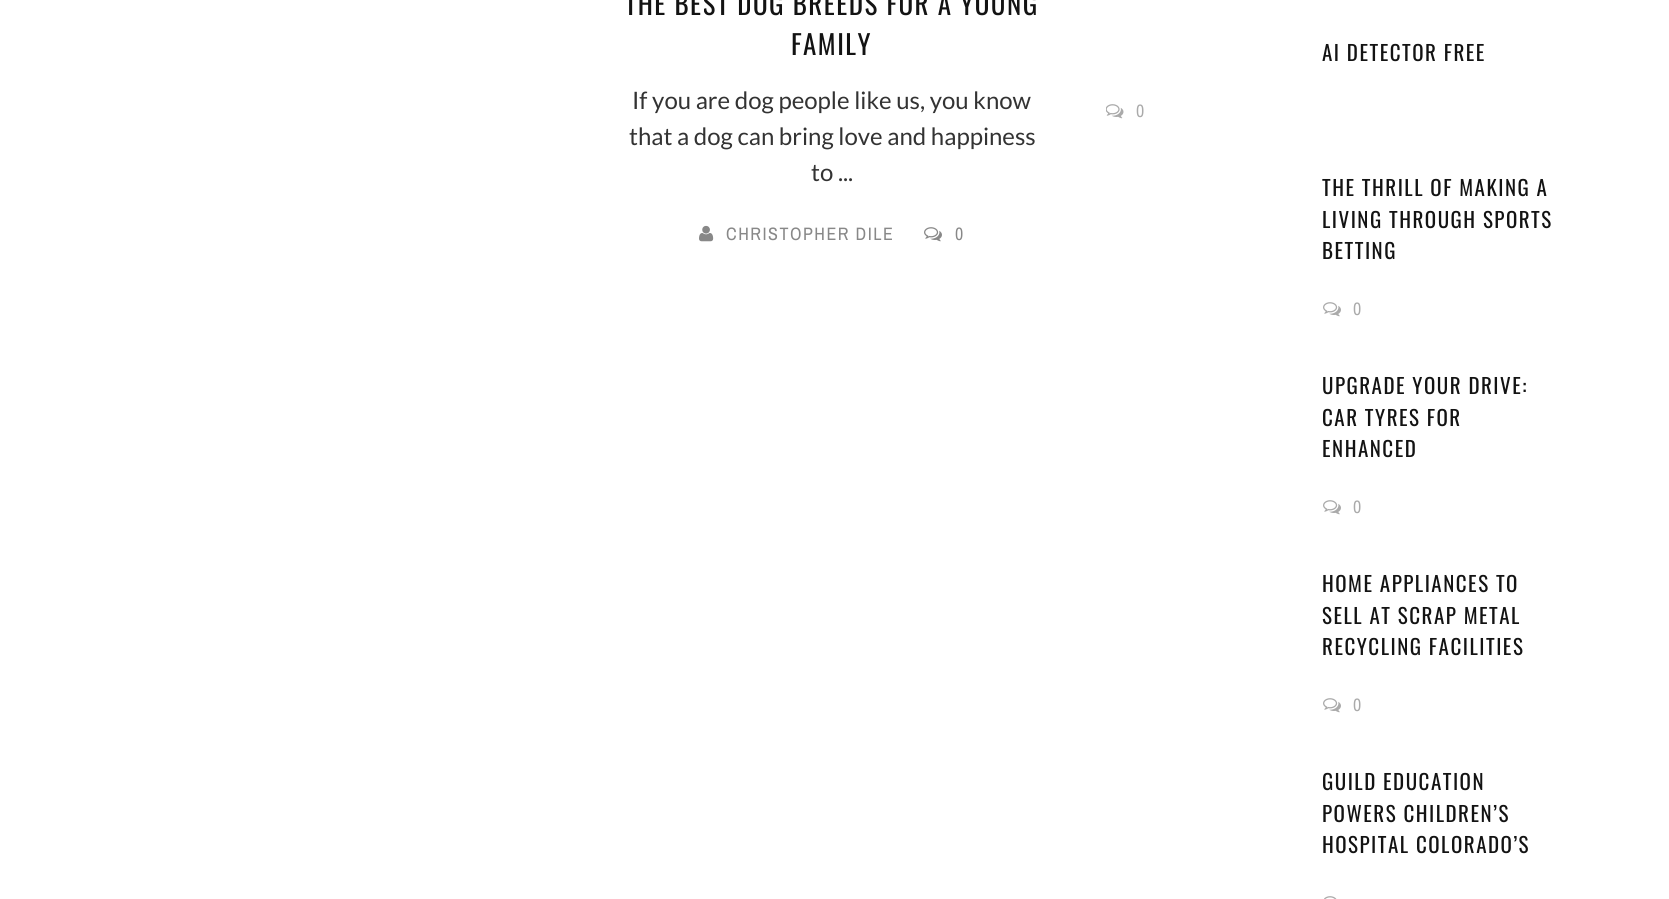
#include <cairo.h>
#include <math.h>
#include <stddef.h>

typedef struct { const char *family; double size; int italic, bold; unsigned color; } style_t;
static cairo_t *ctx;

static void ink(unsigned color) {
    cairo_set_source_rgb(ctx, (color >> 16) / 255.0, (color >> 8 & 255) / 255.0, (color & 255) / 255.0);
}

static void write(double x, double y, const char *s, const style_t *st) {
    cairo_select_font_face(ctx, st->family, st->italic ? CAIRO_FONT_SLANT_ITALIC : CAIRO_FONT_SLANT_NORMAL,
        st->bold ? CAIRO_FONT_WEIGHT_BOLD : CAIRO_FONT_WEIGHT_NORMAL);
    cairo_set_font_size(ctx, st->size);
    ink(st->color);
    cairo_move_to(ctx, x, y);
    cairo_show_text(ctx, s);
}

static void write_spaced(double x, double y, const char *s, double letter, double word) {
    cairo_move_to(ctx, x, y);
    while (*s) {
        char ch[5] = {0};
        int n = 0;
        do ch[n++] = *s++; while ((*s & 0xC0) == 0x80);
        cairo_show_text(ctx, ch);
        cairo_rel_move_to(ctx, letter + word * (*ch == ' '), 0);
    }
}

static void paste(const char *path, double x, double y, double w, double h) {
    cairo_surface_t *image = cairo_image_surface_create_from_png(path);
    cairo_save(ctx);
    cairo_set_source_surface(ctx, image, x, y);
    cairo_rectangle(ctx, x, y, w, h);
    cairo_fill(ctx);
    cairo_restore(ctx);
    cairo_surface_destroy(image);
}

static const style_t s1 = {"Lato", 24, 0, 0, 0x333333};

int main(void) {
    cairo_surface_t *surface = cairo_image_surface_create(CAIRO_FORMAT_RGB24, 1669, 899);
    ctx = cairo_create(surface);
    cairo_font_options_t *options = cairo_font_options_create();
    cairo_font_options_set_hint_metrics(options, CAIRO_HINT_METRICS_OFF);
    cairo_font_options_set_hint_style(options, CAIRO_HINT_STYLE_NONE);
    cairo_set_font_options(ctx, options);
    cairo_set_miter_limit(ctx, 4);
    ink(0xffffff);
    cairo_paint(ctx);
    cairo_select_font_face(ctx, "Oswald", CAIRO_FONT_SLANT_NORMAL, CAIRO_FONT_WEIGHT_NORMAL);
    cairo_set_font_size(ctx, 27);
    ink(0x131313);
    write_spaced(625, 15, "THE BEST DOG BREEDS FOR A YOUNG", 1.5, 0);
    write_spaced(791, 55, "FAMILY", 1.5, 0);
    write(632, 109, "If you are dog people like us, you know", &s1);
    write(629, 145, "that a dog can bring love and happiness", &s1);
    write(811, 181, "to ...", &s1);
    paste("pic1.png", 699, 225, 15, 17);
    cairo_select_font_face(ctx, "Archivo Narrow", CAIRO_FONT_SLANT_NORMAL, CAIRO_FONT_WEIGHT_NORMAL);
    cairo_set_font_size(ctx, 18);
    ink(0x888888);
    write_spaced(726, 240, "CHRISTOPHER DILE", 1.5, 0);
    paste("pic2.png", 924, 227, 18, 15);
    write_spaced(955, 240, "0", 1.5, 0);
    cairo_select_font_face(ctx, "Oswald", CAIRO_FONT_SLANT_NORMAL, CAIRO_FONT_WEIGHT_NORMAL);
    cairo_set_font_size(ctx, 21);
    ink(0x131313);
    write_spaced(1322, 61, "AI DETECTOR FREE", 1.5, 0);
    paste("pic3.png", 1106, 104, 18, 15);
    cairo_select_font_face(ctx, "Archivo Narrow", CAIRO_FONT_SLANT_NORMAL, CAIRO_FONT_WEIGHT_NORMAL);
    cairo_set_font_size(ctx, 18);
    ink(0xaaaaaa);
    write_spaced(1136, 117, "0", 1.5, 0);
    cairo_select_font_face(ctx, "Oswald", CAIRO_FONT_SLANT_NORMAL, CAIRO_FONT_WEIGHT_NORMAL);
    cairo_set_font_size(ctx, 21);
    ink(0x131313);
    write_spaced(1322, 196, "THE THRILL OF MAKING A", 1.5, 0);
    write_spaced(1322, 228, "LIVING THROUGH SPORTS", 1.5, 0);
    write_spaced(1322, 259, "BETTING", 1.5, 0);
    paste("pic4.png", 1323, 302, 18, 15);
    cairo_select_font_face(ctx, "Archivo Narrow", CAIRO_FONT_SLANT_NORMAL, CAIRO_FONT_WEIGHT_NORMAL);
    cairo_set_font_size(ctx, 18);
    ink(0xaaaaaa);
    write_spaced(1353, 315, "0", 1.5, 0);
    cairo_select_font_face(ctx, "Oswald", CAIRO_FONT_SLANT_NORMAL, CAIRO_FONT_WEIGHT_NORMAL);
    cairo_set_font_size(ctx, 21);
    ink(0x131313);
    write_spaced(1322, 394, "UPGRADE YOUR DRIVE:", 1.5, 0);
    write_spaced(1322, 426, "CAR TYRES FOR", 1.5, 0);
    write_spaced(1322, 457, "ENHANCED", 1.5, 0);
    paste("pic4.png", 1323, 500, 18, 15);
    cairo_select_font_face(ctx, "Archivo Narrow", CAIRO_FONT_SLANT_NORMAL, CAIRO_FONT_WEIGHT_NORMAL);
    cairo_set_font_size(ctx, 18);
    ink(0xaaaaaa);
    write_spaced(1353, 513, "0", 1.5, 0);
    cairo_select_font_face(ctx, "Oswald", CAIRO_FONT_SLANT_NORMAL, CAIRO_FONT_WEIGHT_NORMAL);
    cairo_set_font_size(ctx, 21);
    ink(0x131313);
    write_spaced(1322, 592, "HOME APPLIANCES TO", 1.5, 0);
    write_spaced(1322, 624, "SELL AT SCRAP METAL", 1.5, 0);
    write_spaced(1322, 655, "RECYCLING FACILITIES", 1.5, 0);
    paste("pic4.png", 1323, 698, 18, 15);
    cairo_select_font_face(ctx, "Archivo Narrow", CAIRO_FONT_SLANT_NORMAL, CAIRO_FONT_WEIGHT_NORMAL);
    cairo_set_font_size(ctx, 18);
    ink(0xaaaaaa);
    write_spaced(1353, 711, "0", 1.5, 0);
    cairo_select_font_face(ctx, "Oswald", CAIRO_FONT_SLANT_NORMAL, CAIRO_FONT_WEIGHT_NORMAL);
    cairo_set_font_size(ctx, 21);
    ink(0x131313);
    write_spaced(1322, 790, "GUILD EDUCATION", 1.5, 0);
    write_spaced(1322, 822, "POWERS CHILDREN’S", 1.5, 0);
    write_spaced(1322, 853, "HOSPITAL COLORADO’S", 1.5, 0);
    paste("pic5.png", 1324, 896, 13, 3);
    cairo_surface_write_to_png(surface, "screenshot.png");
    cairo_font_options_destroy(options);
    cairo_destroy(ctx);
    cairo_surface_destroy(surface);
    return 0;
}
